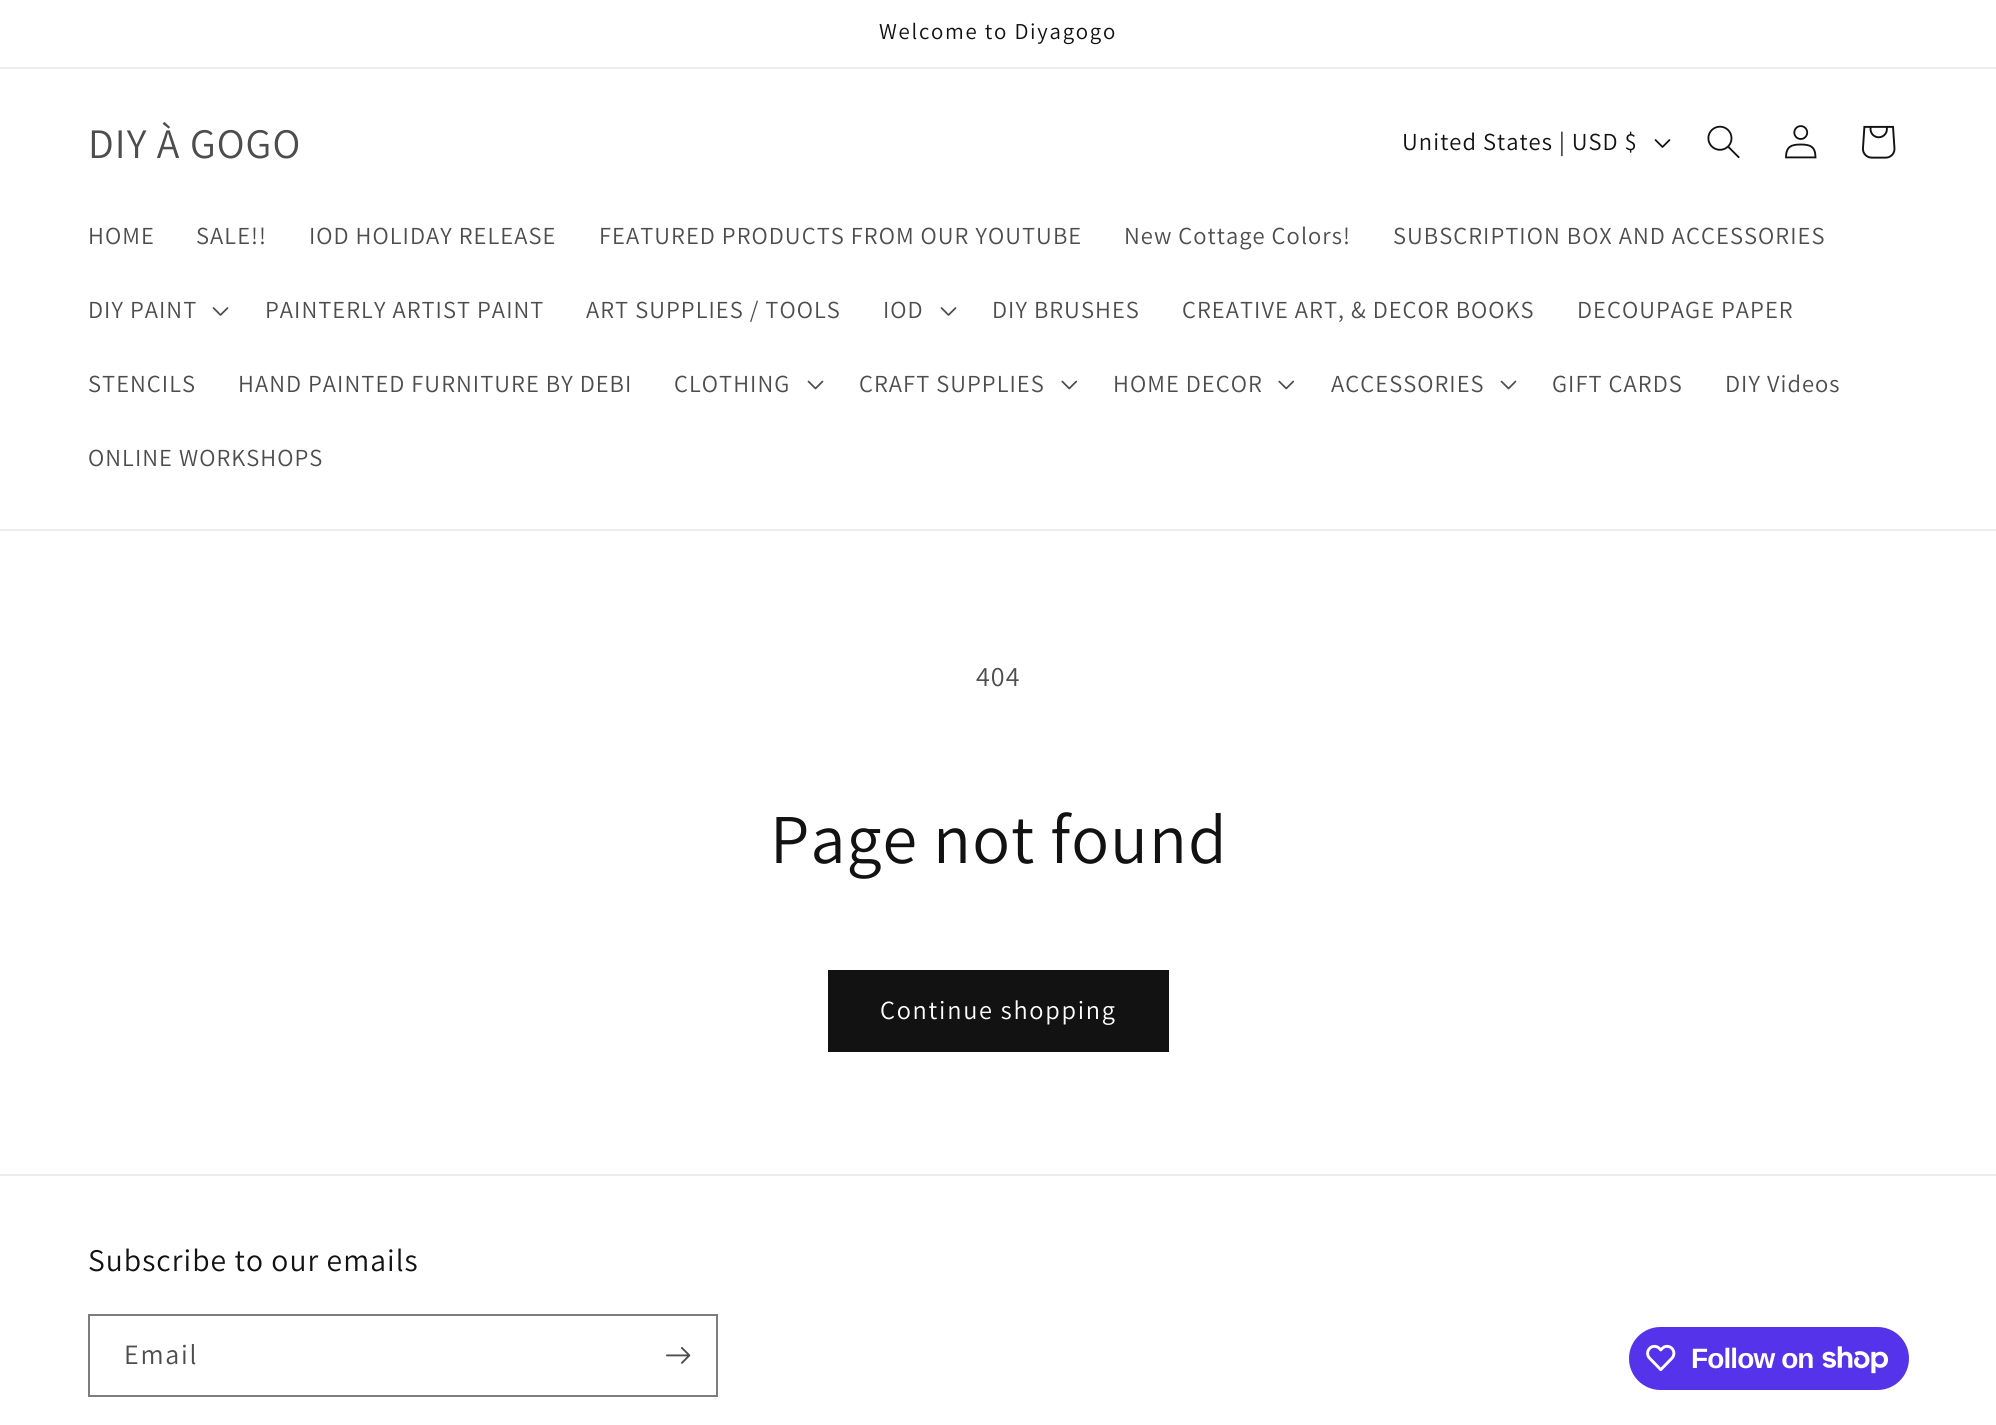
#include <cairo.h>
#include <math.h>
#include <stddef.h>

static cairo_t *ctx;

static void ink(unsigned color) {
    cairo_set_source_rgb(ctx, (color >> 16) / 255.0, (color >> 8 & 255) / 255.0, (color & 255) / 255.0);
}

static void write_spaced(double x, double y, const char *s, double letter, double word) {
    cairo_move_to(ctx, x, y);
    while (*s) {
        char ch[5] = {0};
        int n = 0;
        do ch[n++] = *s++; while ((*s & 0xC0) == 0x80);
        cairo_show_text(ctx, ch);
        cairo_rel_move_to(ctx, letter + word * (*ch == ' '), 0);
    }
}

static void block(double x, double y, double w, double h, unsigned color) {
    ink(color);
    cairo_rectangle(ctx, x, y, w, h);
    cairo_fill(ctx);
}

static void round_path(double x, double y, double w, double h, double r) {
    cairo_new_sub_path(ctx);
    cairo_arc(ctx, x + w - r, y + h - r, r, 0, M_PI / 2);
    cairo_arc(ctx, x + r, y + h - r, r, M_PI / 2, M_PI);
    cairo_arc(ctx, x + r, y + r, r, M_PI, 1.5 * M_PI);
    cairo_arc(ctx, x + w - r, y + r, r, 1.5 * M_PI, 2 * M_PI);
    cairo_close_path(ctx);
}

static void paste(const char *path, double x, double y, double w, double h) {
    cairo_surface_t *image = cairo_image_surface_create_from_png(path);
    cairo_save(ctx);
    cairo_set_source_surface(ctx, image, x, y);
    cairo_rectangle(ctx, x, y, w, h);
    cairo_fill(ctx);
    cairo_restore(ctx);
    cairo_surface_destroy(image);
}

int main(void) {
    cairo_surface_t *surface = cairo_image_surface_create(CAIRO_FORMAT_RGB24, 1996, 1425);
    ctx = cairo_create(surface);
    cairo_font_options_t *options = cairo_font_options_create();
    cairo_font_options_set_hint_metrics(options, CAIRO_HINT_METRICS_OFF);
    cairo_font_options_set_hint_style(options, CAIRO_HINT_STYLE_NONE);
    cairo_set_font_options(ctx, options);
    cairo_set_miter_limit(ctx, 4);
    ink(0xffffff);
    cairo_paint(ctx);
    block(0, 67, 1996, 2, 0xececec);
    cairo_select_font_face(ctx, "Assistant", CAIRO_FONT_SLANT_NORMAL, CAIRO_FONT_WEIGHT_NORMAL);
    cairo_set_font_size(ctx, 22.75);
    ink(0x121212);
    write_spaced(879, 39, "Welcome to Diyagogo", 1.75, 0);
    block(0, 529, 1996, 2, 0xececec);
    cairo_set_font_size(ctx, 42);
    ink(0x4d4d4d);
    write_spaced(88, 158, "DIY À GOGO", 1.05, 0);
    cairo_set_font_size(ctx, 24.5);
    ink(0x121212);
    write_spaced(1402, 150, "United States | USD $", 1.05, 0);
    paste("pic1.png", 1654, 139, 17, 9);
    paste("pic2.png", 1707, 125, 33, 34);
    paste("pic3.png", 1785, 125, 32, 34);
    paste("pic4.png", 1862, 125, 34, 34);
    ink(0x4d4d4d);
    write_spaced(88, 244, "HOME", 1.05, 0);
    write_spaced(196, 244, "SALE!!", 1.05, 0);
    write_spaced(309, 244, "IOD HOLIDAY RELEASE", 1.05, 0);
    write_spaced(599, 244, "FEATURED PRODUCTS FROM OUR YOUTUBE", 1.05, 0);
    write_spaced(1124, 244, "New Cottage Colors!", 1.05, 0);
    write_spaced(1393, 244, "SUBSCRIPTION BOX AND ACCESSORIES", 1.05, 0);
    write_spaced(88, 318, "DIY PAINT", 1.05, 0);
    paste("pic5.png", 212, 307, 17, 9);
    write_spaced(265, 318, "PAINTERLY ARTIST PAINT", 1.05, 0);
    write_spaced(586, 318, "ART SUPPLIES / TOOLS", 1.05, 0);
    write_spaced(883, 318, "IOD", 1.05, 0);
    paste("pic5.png", 940, 307, 17, 9);
    write_spaced(992, 318, "DIY BRUSHES", 1.05, 0);
    write_spaced(1182, 318, "CREATIVE ART, & DECOR BOOKS", 1.05, 0);
    write_spaced(1577, 318, "DECOUPAGE PAPER", 1.05, 0);
    write_spaced(88, 392, "STENCILS", 1.05, 0);
    write_spaced(238, 392, "HAND PAINTED FURNITURE BY DEBI", 1.05, 0);
    write_spaced(674, 392, "CLOTHING", 1.05, 0);
    paste("pic6.png", 807, 380, 17, 10);
    write_spaced(859, 392, "CRAFT SUPPLIES", 1.05, 0);
    paste("pic7.png", 1061, 380, 17, 10);
    write_spaced(1113, 392, "HOME DECOR", 1.05, 0);
    paste("pic7.png", 1278, 380, 17, 10);
    write_spaced(1331, 392, "ACCESSORIES", 1.05, 0);
    paste("pic6.png", 1500, 380, 17, 10);
    write_spaced(1552, 392, "GIFT CARDS", 1.05, 0);
    write_spaced(1725, 392, "DIY Videos", 1.05, 0);
    write_spaced(88, 466, "ONLINE WORKSHOPS", 1.05, 0);
    cairo_set_font_size(ctx, 28);
    write_spaced(976, 686, "404", 1.05, 0);
    cairo_set_font_size(ctx, 70);
    ink(0x121212);
    write_spaced(770, 863, "Page not found", 1.05, 0);
    block(828, 970, 341, 82, 0x121212);
    cairo_set_font_size(ctx, 26.25);
    ink(0xffffff);
    write_spaced(880, 1019, "Continue shopping", 1.75, 0);
    block(0, 1174, 1996, 2, 0xececec);
    cairo_set_font_size(ctx, 31.5);
    ink(0x121212);
    write_spaced(88, 1271, "Subscribe to our emails", 1.05, 0);
    cairo_rectangle(ctx, 89, 1315, 628, 81);
    ink(0x7d7d7d);
    cairo_stroke(ctx);
    cairo_set_font_size(ctx, 28);
    ink(0x4d4d4d);
    write_spaced(124, 1364, "Email", 1.75, 0);
    paste("pic8.png", 666, 1347, 25, 17);
    ink(0x5433eb);
    round_path(1629, 1327, 280, 63, 31.5);
    cairo_fill(ctx);
    paste("pic9.png", 1646, 1344, 30, 28);
    cairo_select_font_face(ctx, "Liberation Sans", CAIRO_FONT_SLANT_NORMAL, CAIRO_FONT_WEIGHT_BOLD);
    ink(0xffffff);
    write_spaced(1691, 1368, "Follow on", -0.9, 0);
    paste("pic10.png", 1822, 1346, 66, 28);
    cairo_surface_write_to_png(surface, "screenshot.png");
    cairo_font_options_destroy(options);
    cairo_destroy(ctx);
    cairo_surface_destroy(surface);
    return 0;
}
